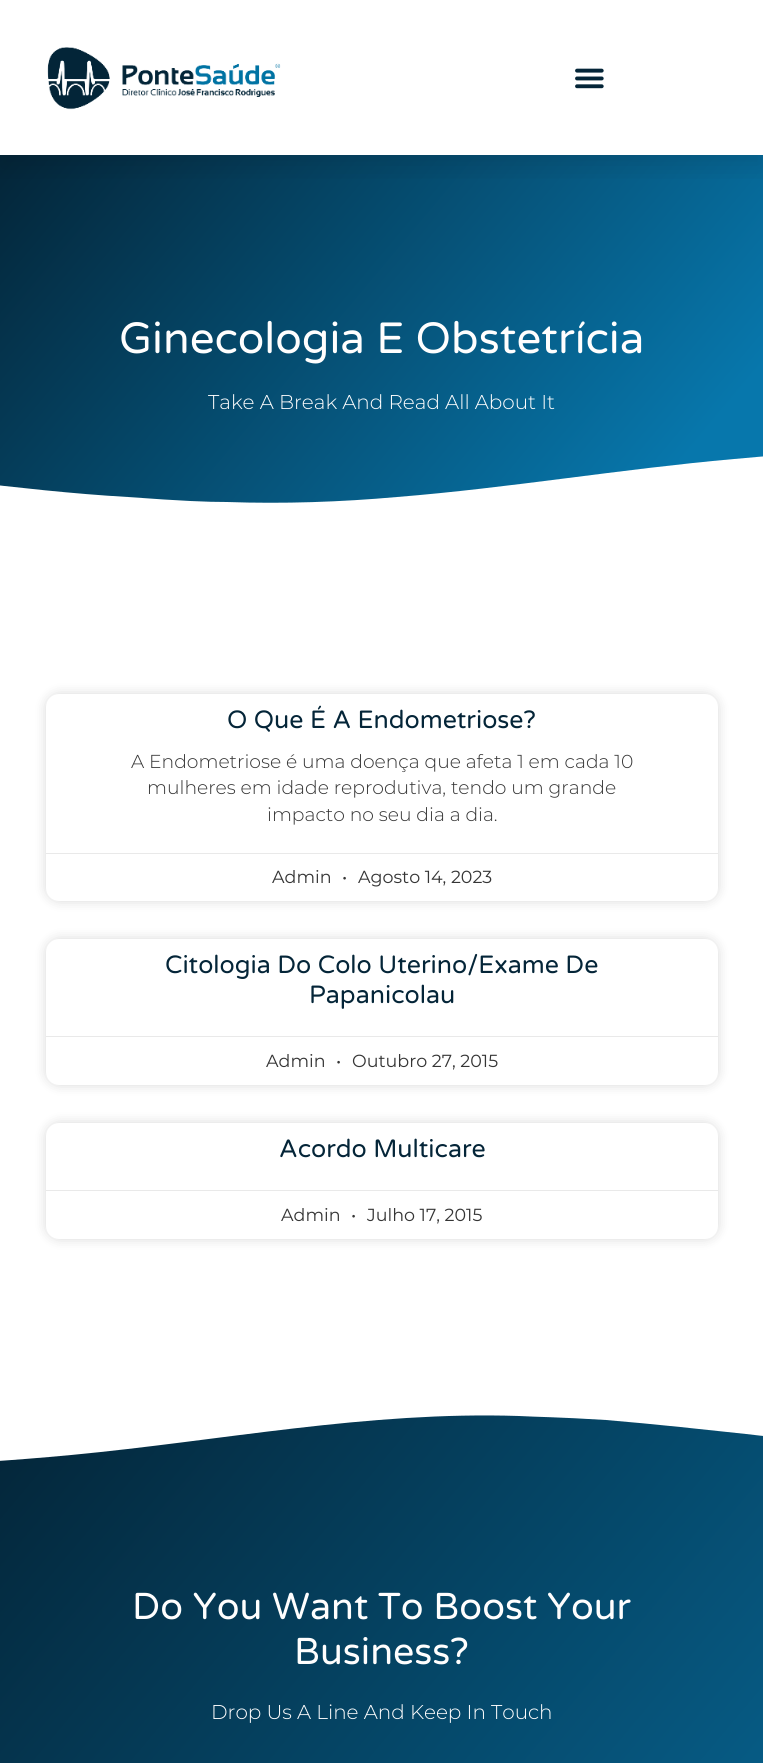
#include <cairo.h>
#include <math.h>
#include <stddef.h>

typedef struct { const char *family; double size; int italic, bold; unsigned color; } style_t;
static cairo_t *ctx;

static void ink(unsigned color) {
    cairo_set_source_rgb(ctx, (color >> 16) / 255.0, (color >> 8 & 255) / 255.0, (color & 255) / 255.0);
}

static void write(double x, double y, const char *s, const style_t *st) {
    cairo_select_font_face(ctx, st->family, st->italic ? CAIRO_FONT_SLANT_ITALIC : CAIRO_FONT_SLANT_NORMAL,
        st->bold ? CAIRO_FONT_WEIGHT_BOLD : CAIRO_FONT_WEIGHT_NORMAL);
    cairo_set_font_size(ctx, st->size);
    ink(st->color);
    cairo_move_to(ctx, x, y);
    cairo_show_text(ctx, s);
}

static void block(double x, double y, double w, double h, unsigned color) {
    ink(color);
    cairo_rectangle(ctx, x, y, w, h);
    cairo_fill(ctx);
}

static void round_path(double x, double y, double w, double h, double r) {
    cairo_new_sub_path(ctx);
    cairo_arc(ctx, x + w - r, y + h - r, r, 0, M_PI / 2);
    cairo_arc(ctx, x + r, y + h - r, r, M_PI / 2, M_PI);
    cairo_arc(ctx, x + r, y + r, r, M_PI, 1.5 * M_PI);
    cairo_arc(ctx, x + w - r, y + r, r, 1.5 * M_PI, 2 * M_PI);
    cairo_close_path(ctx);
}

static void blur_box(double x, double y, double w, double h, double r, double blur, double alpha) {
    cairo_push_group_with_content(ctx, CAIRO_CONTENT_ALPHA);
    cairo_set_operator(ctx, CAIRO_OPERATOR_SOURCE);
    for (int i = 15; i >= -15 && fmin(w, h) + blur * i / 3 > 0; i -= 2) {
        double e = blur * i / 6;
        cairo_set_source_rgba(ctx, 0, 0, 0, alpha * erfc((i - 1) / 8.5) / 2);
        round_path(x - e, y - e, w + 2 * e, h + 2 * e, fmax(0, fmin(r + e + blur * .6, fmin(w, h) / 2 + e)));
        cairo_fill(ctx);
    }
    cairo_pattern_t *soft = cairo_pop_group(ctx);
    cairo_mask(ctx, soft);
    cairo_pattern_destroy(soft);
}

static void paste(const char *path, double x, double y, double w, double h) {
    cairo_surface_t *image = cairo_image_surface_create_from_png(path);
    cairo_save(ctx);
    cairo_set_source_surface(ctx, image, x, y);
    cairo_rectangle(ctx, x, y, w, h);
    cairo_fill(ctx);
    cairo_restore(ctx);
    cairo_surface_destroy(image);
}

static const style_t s1 = {"Varela Round", 43.75, 0, 0, 0xfffefe};
static const style_t s2 = {"Montserrat Light", 20, 0, 0, 0xfffefe};
static const style_t s3 = {"Varela Round", 25, 0, 0, 0x042538};
static const style_t s4 = {"Montserrat Light", 18.75, 0, 0, 0x353535};
static const style_t s5 = {"Montserrat", 17.5, 0, 0, 0x353535};
static const style_t s6 = {"Varela Round", 37.5, 0, 0, 0xfffefe};

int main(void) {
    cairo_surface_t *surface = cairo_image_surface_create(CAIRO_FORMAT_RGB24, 763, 1763);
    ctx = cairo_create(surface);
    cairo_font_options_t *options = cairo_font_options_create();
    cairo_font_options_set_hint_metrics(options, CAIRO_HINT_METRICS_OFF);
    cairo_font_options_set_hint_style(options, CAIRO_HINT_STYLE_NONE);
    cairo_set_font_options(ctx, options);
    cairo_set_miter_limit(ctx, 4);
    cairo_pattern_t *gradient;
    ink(0xffffff);
    cairo_paint(ctx);
    gradient = cairo_pattern_create_linear(72, 70, 692, 590);
    cairo_pattern_add_color_stop_rgba(gradient, 0, 0.016, 0.145, 0.22, 1);
    cairo_pattern_add_color_stop_rgba(gradient, 0.89, 0.027, 0.467, 0.675, 1);
    cairo_set_source(ctx, gradient);
    cairo_pattern_destroy(gradient);
    cairo_rectangle(ctx, 0, 155, 763, 348);
    cairo_fill(ctx);
    cairo_save(ctx);
    cairo_rectangle(ctx, 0, 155, 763, 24);
    cairo_clip(ctx);
    ink(0x000000);
    blur_box(0, 13, 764, 155, 0, 12.5, 0.1);
    cairo_restore(ctx);
    paste("pic1.png", 47, 47, 234, 63);
    paste("pic2.png", 575, 68, 29, 21);
    write(119, 353, "Ginecologia E Obstetrícia", &s1);
    write(208, 409, "Take A Break And Read All About It", &s2);
    ink(0xffffff);
    cairo_new_path(ctx);
    cairo_move_to(ctx, 227, 502);
    cairo_curve_to(ctx, 283, 504, 341, 502, 397, 497);
    cairo_curve_to(ctx, 509, 488, 621, 469, 734, 459);
    cairo_curve_to(ctx, 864, 447, 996, 442, 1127, 446);
    cairo_curve_to(ctx, 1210, 448, 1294, 453, 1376, 463);
    cairo_line_to(ctx, 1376, 506);
    cairo_line_to(ctx, -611, 506);
    cairo_line_to(ctx, -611, 487);
    cairo_curve_to(ctx, -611, 487, -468, 467, -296, 468);
    cairo_curve_to(ctx, -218, 469, -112, 472, -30, 482);
    cairo_curve_to(ctx, 12, 487, 74, 494, 128, 497);
    cairo_curve_to(ctx, 182, 501, 207, 502, 227, 502);
    cairo_close_path(ctx);
    cairo_fill(ctx);
    ink(0x000000);
    blur_box(46, 694, 672, 207, 13, 6, 0.15);
    ink(0xffffff);
    round_path(46, 694, 672, 207, 13);
    cairo_fill(ctx);
    write(227, 728, "O Que É A Endometriose?", &s3);
    write(131, 768, "A Endometriose é uma doença que afeta 1 em cada 10", &s4);
    write(147, 794, "mulheres em idade reprodutiva, tendo um grande", &s4);
    write(267, 821, "impacto no seu dia a dia.", &s4);
    block(46, 853, 672, 1, 0xe9e9e9);
    write(272, 883, "Admin", &s5);
    write(342, 883, "•", &s5);
    write(358, 883, "Agosto 14, 2023", &s5);
    ink(0x000000);
    blur_box(46, 939, 672, 146, 13, 6, 0.15);
    ink(0xffffff);
    round_path(46, 939, 672, 146, 13);
    cairo_fill(ctx);
    write(165, 973, "Citologia Do Colo Uterino/Exame De", &s3);
    write(309, 1003, "Papanicolau", &s3);
    block(46, 1036, 672, 1, 0xe9e9e9);
    write(266, 1067, "Admin", &s5);
    write(336, 1067, "•", &s5);
    write(352, 1067, "Outubro 27, 2015", &s5);
    ink(0x000000);
    blur_box(46, 1123, 672, 116, 13, 6, 0.15);
    ink(0xffffff);
    round_path(46, 1123, 672, 116, 13);
    cairo_fill(ctx);
    write(279, 1157, "Acordo Multicare", &s3);
    block(46, 1190, 672, 1, 0xe9e9e9);
    write(281, 1221, "Admin", &s5);
    write(351, 1221, "•", &s5);
    write(367, 1221, "Julho 17, 2015", &s5);
    gradient = cairo_pattern_create_linear(-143, 1584, 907, 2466);
    cairo_pattern_add_color_stop_rgba(gradient, 0, 0.016, 0.145, 0.22, 1);
    cairo_pattern_add_color_stop_rgba(gradient, 0.9, 0.027, 0.467, 0.675, 1);
    cairo_set_source(ctx, gradient);
    cairo_pattern_destroy(gradient);
    cairo_rectangle(ctx, 0, 1415, 763, 348);
    cairo_fill(ctx);
    cairo_save(ctx);
    cairo_rectangle(ctx, 0, 1413, 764, 56);
    cairo_clip(ctx);
    ink(0xffffff);
    cairo_new_path(ctx);
    cairo_move_to(ctx, 519, 1416);
    cairo_curve_to(ctx, 368, 1411, 220, 1441, 71, 1455);
    cairo_curve_to(ctx, -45, 1466, -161, 1470, -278, 1467);
    cairo_curve_to(ctx, -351, 1465, -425, 1460, -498, 1451);
    cairo_line_to(ctx, -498, 1412);
    cairo_line_to(ctx, 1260, 1412);
    cairo_line_to(ctx, 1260, 1430);
    cairo_curve_to(ctx, 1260, 1430, 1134, 1448, 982, 1447);
    cairo_curve_to(ctx, 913, 1446, 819, 1443, 746, 1434);
    cairo_curve_to(ctx, 709, 1430, 654, 1424, 606, 1420);
    cairo_curve_to(ctx, 558, 1417, 537, 1417, 519, 1416);
    cairo_close_path(ctx);
    cairo_fill(ctx);
    cairo_restore(ctx);
    write(132, 1619, "Do You Want To Boost Your", &s6);
    write(294, 1664, "Business?", &s6);
    write(211, 1719, "Drop Us A Line And Keep In Touch", &s2);
    cairo_surface_write_to_png(surface, "screenshot.png");
    cairo_font_options_destroy(options);
    cairo_destroy(ctx);
    cairo_surface_destroy(surface);
    return 0;
}
